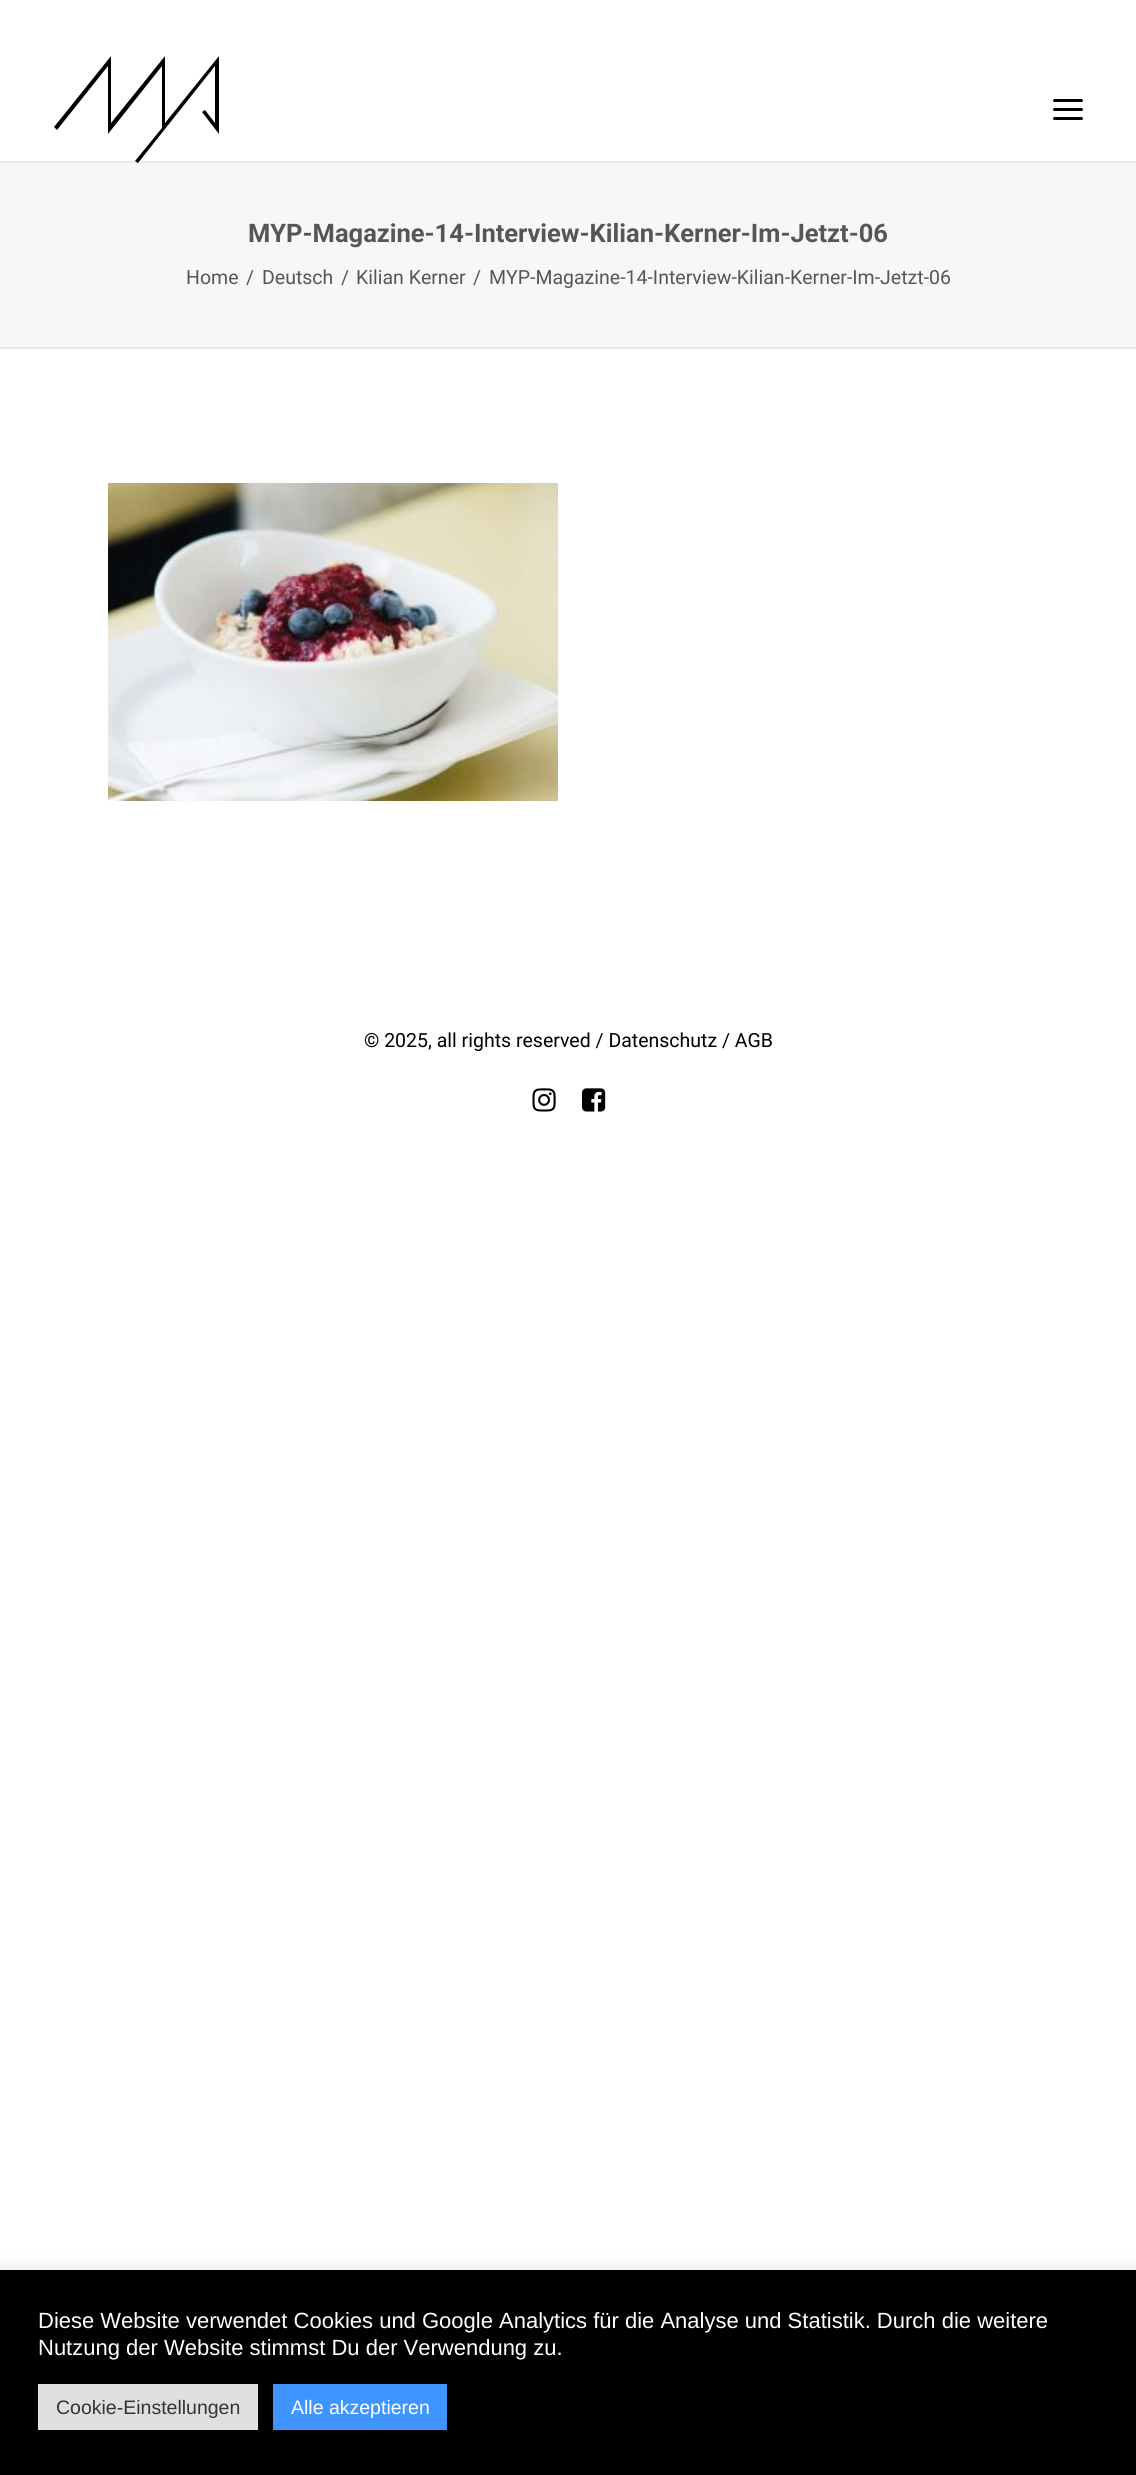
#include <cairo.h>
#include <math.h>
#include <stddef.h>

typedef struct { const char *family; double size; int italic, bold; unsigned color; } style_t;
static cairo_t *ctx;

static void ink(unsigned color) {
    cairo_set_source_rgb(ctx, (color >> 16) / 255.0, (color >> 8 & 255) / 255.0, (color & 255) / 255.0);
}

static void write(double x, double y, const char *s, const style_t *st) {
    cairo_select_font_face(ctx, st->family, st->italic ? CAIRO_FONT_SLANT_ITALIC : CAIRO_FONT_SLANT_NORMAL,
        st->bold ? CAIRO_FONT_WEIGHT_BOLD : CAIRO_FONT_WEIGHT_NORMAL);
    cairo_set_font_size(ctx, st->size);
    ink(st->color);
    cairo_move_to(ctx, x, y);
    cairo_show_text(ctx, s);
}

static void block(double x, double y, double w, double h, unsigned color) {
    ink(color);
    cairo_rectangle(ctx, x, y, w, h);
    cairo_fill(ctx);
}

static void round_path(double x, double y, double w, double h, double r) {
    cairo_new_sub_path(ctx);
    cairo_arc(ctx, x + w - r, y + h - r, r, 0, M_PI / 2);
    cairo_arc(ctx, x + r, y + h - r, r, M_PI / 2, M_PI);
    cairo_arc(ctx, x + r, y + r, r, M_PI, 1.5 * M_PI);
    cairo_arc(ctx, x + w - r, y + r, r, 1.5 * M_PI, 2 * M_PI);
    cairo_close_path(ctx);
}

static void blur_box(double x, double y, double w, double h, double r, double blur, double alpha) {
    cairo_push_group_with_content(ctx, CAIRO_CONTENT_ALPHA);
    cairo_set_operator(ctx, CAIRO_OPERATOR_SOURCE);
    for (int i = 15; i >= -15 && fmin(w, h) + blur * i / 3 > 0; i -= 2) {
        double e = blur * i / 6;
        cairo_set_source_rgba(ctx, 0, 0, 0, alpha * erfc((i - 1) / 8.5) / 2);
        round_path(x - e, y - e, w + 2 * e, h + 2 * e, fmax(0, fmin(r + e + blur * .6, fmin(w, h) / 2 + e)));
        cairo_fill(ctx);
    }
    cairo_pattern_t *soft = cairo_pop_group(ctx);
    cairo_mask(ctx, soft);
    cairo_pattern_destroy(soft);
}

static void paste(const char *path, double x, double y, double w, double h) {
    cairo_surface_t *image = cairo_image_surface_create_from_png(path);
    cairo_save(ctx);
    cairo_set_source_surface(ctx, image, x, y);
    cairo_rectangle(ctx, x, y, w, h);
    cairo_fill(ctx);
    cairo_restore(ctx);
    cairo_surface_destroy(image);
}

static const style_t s1 = {"Roboto", 25.5, 0, 1, 0x565656};
static const style_t s2 = {"Roboto", 19.5, 0, 0, 0x565656};
static const style_t s3 = {"Roboto", 19.5, 0, 0, 0x000000};
static const style_t s4 = {"Liberation Sans", 22, 0, 0, 0xffffff};
static const style_t s5 = {"Liberation Sans", 19.5, 0, 0, 0x333333};
static const style_t s6 = {"Liberation Sans", 19.5, 0, 0, 0xffffff};

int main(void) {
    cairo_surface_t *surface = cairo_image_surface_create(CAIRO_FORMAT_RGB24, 1136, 2475);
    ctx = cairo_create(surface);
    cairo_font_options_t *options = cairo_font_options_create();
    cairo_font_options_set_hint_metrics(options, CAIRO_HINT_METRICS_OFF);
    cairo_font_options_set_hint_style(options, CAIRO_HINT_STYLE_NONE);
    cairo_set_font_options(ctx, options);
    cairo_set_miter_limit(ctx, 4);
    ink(0xffffff);
    cairo_paint(ctx);
    block(0, 161, 1136, 2, 0xeaeaea);
    ink(0x000000);
    cairo_new_path(ctx);
    cairo_move_to(ctx, 219, 56);
    cairo_line_to(ctx, 165, 123);
    cairo_line_to(ctx, 165, 56);
    cairo_line_to(ctx, 111, 123);
    cairo_line_to(ctx, 111, 56);
    cairo_line_to(ctx, 54, 127);
    cairo_line_to(ctx, 57, 130);
    cairo_line_to(ctx, 108, 66);
    cairo_line_to(ctx, 108, 134);
    cairo_line_to(ctx, 162, 66);
    cairo_line_to(ctx, 162, 128);
    cairo_line_to(ctx, 135, 161);
    cairo_line_to(ctx, 138, 163);
    cairo_line_to(ctx, 215, 66);
    cairo_line_to(ctx, 215, 123);
    cairo_line_to(ctx, 205, 110);
    cairo_line_to(ctx, 202, 112);
    cairo_line_to(ctx, 219, 134);
    cairo_close_path(ctx);
    cairo_fill(ctx);
    round_path(1053, 108, 30, 3, 1.5);
    cairo_fill(ctx);
    round_path(1053, 99, 30, 3, 1.5);
    cairo_fill(ctx);
    round_path(1053, 117, 30, 3, 1.5);
    cairo_fill(ctx);
    block(0, 163, 1136, 184, 0xf7f7f7);
    block(0, 347, 1136, 2, 0xeaeaea);
    write(248, 242, "MYP-Magazine-14-Interview-Kilian-Kerner-Im-Jetzt-06", &s1);
    write(186, 284, "Home", &s2);
    write(246, 284, "/", &s2);
    write(262, 284, "Deutsch", &s2);
    write(341, 284, "/", &s2);
    write(356, 284, "Kilian Kerner", &s2);
    write(473, 284, "/", &s2);
    write(489, 284, "MYP-Magazine-14-Interview-Kilian-Kerner-Im-Jetzt-06", &s2);
    paste("pic1.png", 108, 483, 450, 318);
    write(364, 1047, "© 2025, all rights reserved / Datenschutz / AGB", &s3);
    paste("pic2.png", 532, 1088, 24, 24);
    paste("pic3.png", 582, 1088, 24, 24);
    ink(0xacabab);
    blur_box(0, 2268, 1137, 206, 0, 7.5, 0.3);
    block(0, 2270, 1136, 205, 0x000000);
    write(38, 2328, "Diese Website verwendet Cookies und Google Analytics für die Analyse und Statistik. Durch die weitere", &s4);
    write(38, 2355, "Nutzung der Website stimmst Du der Verwendung zu.", &s4);
    block(38, 2384, 220, 46, 0xdedfe0);
    write(56, 2414, "Cookie-Einstellungen", &s5);
    block(273, 2384, 174, 46, 0x3f95ff);
    write(291, 2414, "Alle akzeptieren", &s6);
    cairo_surface_write_to_png(surface, "screenshot.png");
    cairo_font_options_destroy(options);
    cairo_destroy(ctx);
    cairo_surface_destroy(surface);
    return 0;
}
